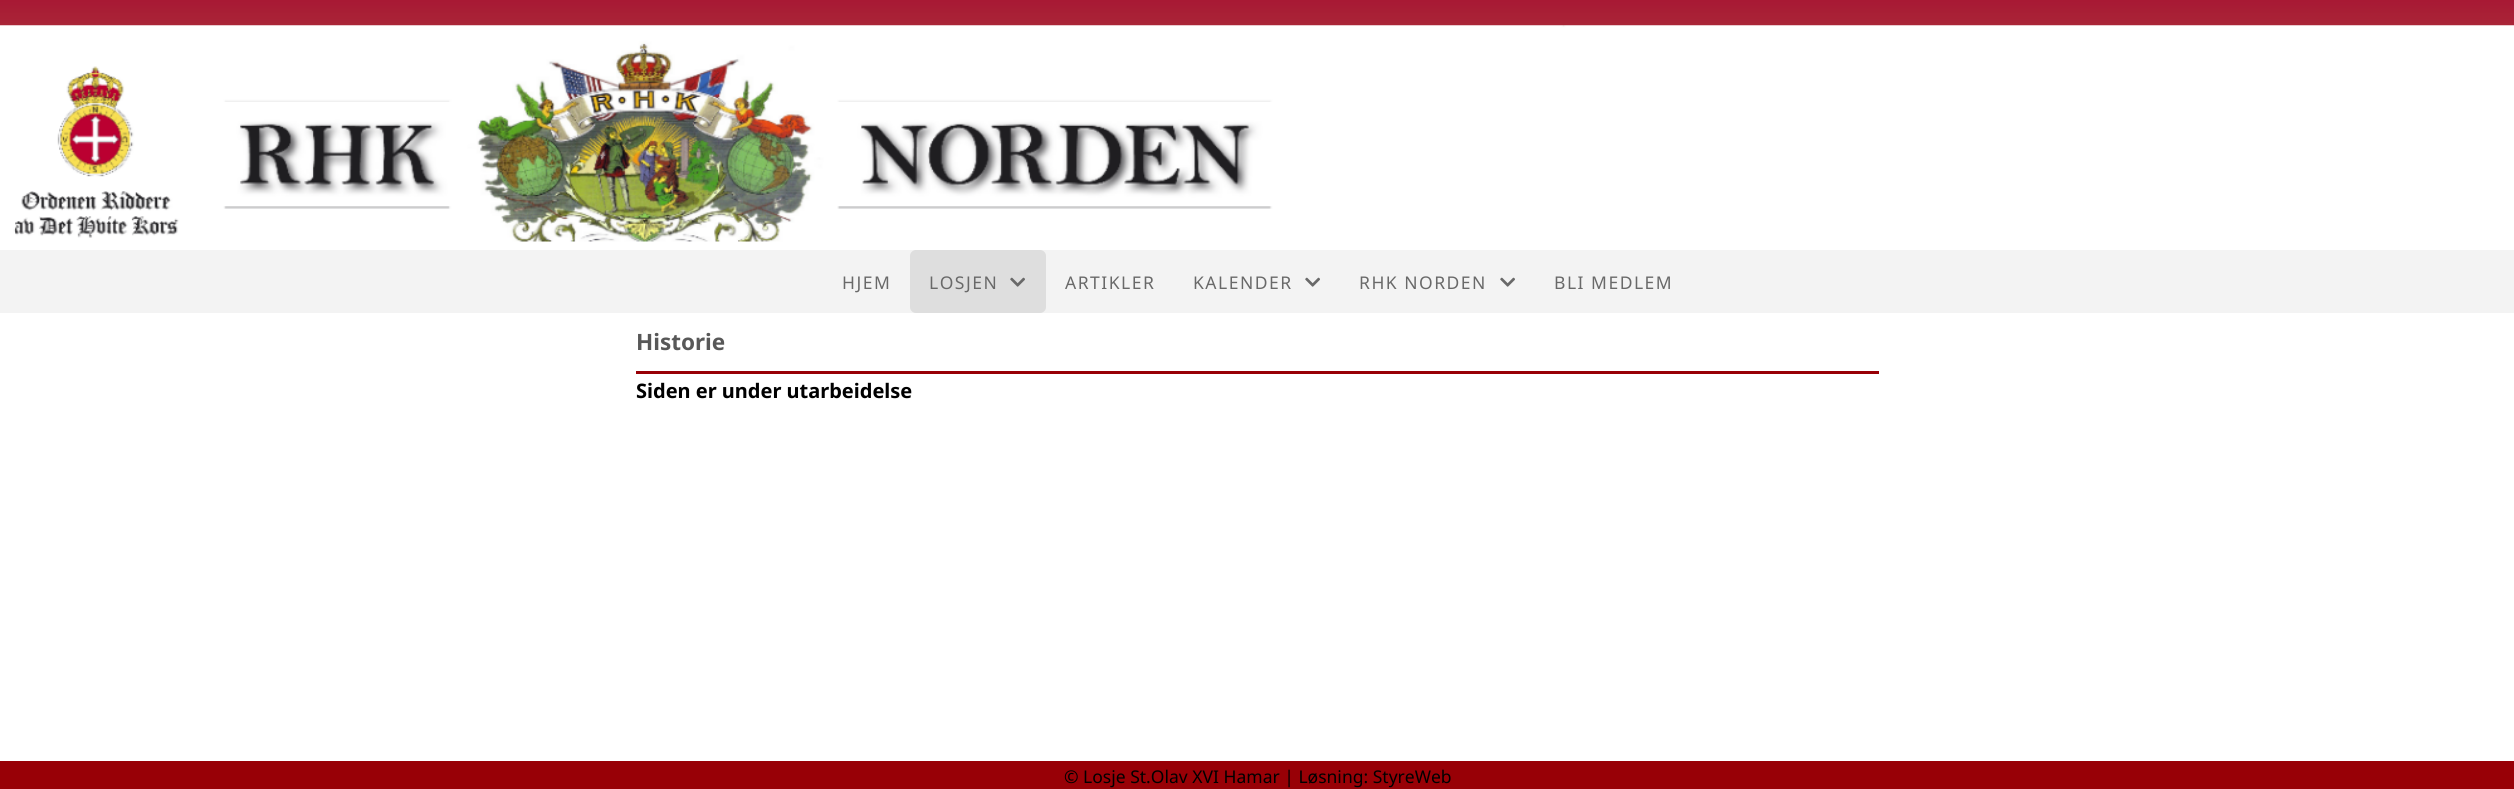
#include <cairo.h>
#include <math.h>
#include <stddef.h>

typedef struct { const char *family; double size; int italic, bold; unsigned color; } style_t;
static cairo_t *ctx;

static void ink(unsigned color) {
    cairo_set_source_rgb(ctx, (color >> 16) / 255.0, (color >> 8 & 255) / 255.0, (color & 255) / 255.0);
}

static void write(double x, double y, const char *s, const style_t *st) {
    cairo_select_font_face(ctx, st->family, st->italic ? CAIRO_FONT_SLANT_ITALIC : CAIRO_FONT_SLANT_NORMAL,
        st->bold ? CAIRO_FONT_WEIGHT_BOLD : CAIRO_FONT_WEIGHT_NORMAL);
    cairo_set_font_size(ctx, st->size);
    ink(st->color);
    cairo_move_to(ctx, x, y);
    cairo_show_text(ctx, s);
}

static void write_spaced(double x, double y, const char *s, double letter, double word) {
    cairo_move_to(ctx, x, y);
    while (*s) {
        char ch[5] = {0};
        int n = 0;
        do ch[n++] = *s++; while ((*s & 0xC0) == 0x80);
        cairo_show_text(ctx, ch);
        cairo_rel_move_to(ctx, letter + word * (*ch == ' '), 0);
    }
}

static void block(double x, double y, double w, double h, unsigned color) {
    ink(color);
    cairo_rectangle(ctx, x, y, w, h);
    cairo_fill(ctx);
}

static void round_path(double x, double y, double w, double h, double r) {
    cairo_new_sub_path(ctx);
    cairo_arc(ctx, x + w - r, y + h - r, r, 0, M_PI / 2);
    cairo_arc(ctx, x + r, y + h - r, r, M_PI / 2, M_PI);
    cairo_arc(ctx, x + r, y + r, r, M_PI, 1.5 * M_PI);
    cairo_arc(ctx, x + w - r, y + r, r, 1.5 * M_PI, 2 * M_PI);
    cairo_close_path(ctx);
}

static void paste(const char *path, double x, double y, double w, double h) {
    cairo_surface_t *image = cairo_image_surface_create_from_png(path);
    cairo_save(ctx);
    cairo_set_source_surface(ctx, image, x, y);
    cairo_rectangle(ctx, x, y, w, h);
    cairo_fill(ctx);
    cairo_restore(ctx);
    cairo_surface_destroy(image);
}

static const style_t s1 = {"Noto Sans", 22.5, 0, 1, 0x585858};
static const style_t s2 = {"Noto Sans", 20, 0, 1, 0x000000};
static const style_t s3 = {"Noto Sans", 17.5, 0, 0, 0x000000};

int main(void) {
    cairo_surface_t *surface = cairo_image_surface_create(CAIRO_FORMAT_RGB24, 2514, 789);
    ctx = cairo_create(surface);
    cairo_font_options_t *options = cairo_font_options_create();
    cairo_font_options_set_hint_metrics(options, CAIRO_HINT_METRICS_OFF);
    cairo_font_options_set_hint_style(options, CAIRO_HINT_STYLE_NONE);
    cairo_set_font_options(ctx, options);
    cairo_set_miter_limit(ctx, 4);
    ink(0xffffff);
    cairo_paint(ctx);
    paste("pic1.png", 0, 0, 2514, 242);
    block(0, 250, 2514, 63, 0xf3f3f3);
    cairo_select_font_face(ctx, "Noto Sans", CAIRO_FONT_SLANT_NORMAL, CAIRO_FONT_WEIGHT_NORMAL);
    cairo_set_font_size(ctx, 17.5);
    ink(0x696969);
    write_spaced(842, 289, "HJEM", 1.5, 0);
    ink(0xdedede);
    round_path(910, 250, 136, 63, 6);
    cairo_fill(ctx);
    ink(0x696969);
    write_spaced(929, 289, "LOSJEN", 1.5, 0);
    paste("pic2.png", 1010, 277, 15, 10);
    write_spaced(1065, 289, "ARTIKLER", 1.5, 0);
    write_spaced(1193, 289, "KALENDER", 1.5, 0);
    paste("pic3.png", 1305, 277, 15, 10);
    write_spaced(1359, 289, "RHK NORDEN", 1.5, 0);
    paste("pic3.png", 1500, 277, 15, 10);
    write_spaced(1554, 289, "BLI MEDLEM", 1.5, 0);
    block(636, 371, 1243, 3, 0x980006);
    write(636, 350, "Historie", &s1);
    write(636, 398, "Siden er under utarbeidelse", &s2);
    block(0, 761, 2514, 28, 0x980006);
    write(1064, 783, "© Losje St.Olav XVI Hamar | Løsning: StyreWeb", &s3);
    cairo_surface_write_to_png(surface, "screenshot.png");
    cairo_font_options_destroy(options);
    cairo_destroy(ctx);
    cairo_surface_destroy(surface);
    return 0;
}
